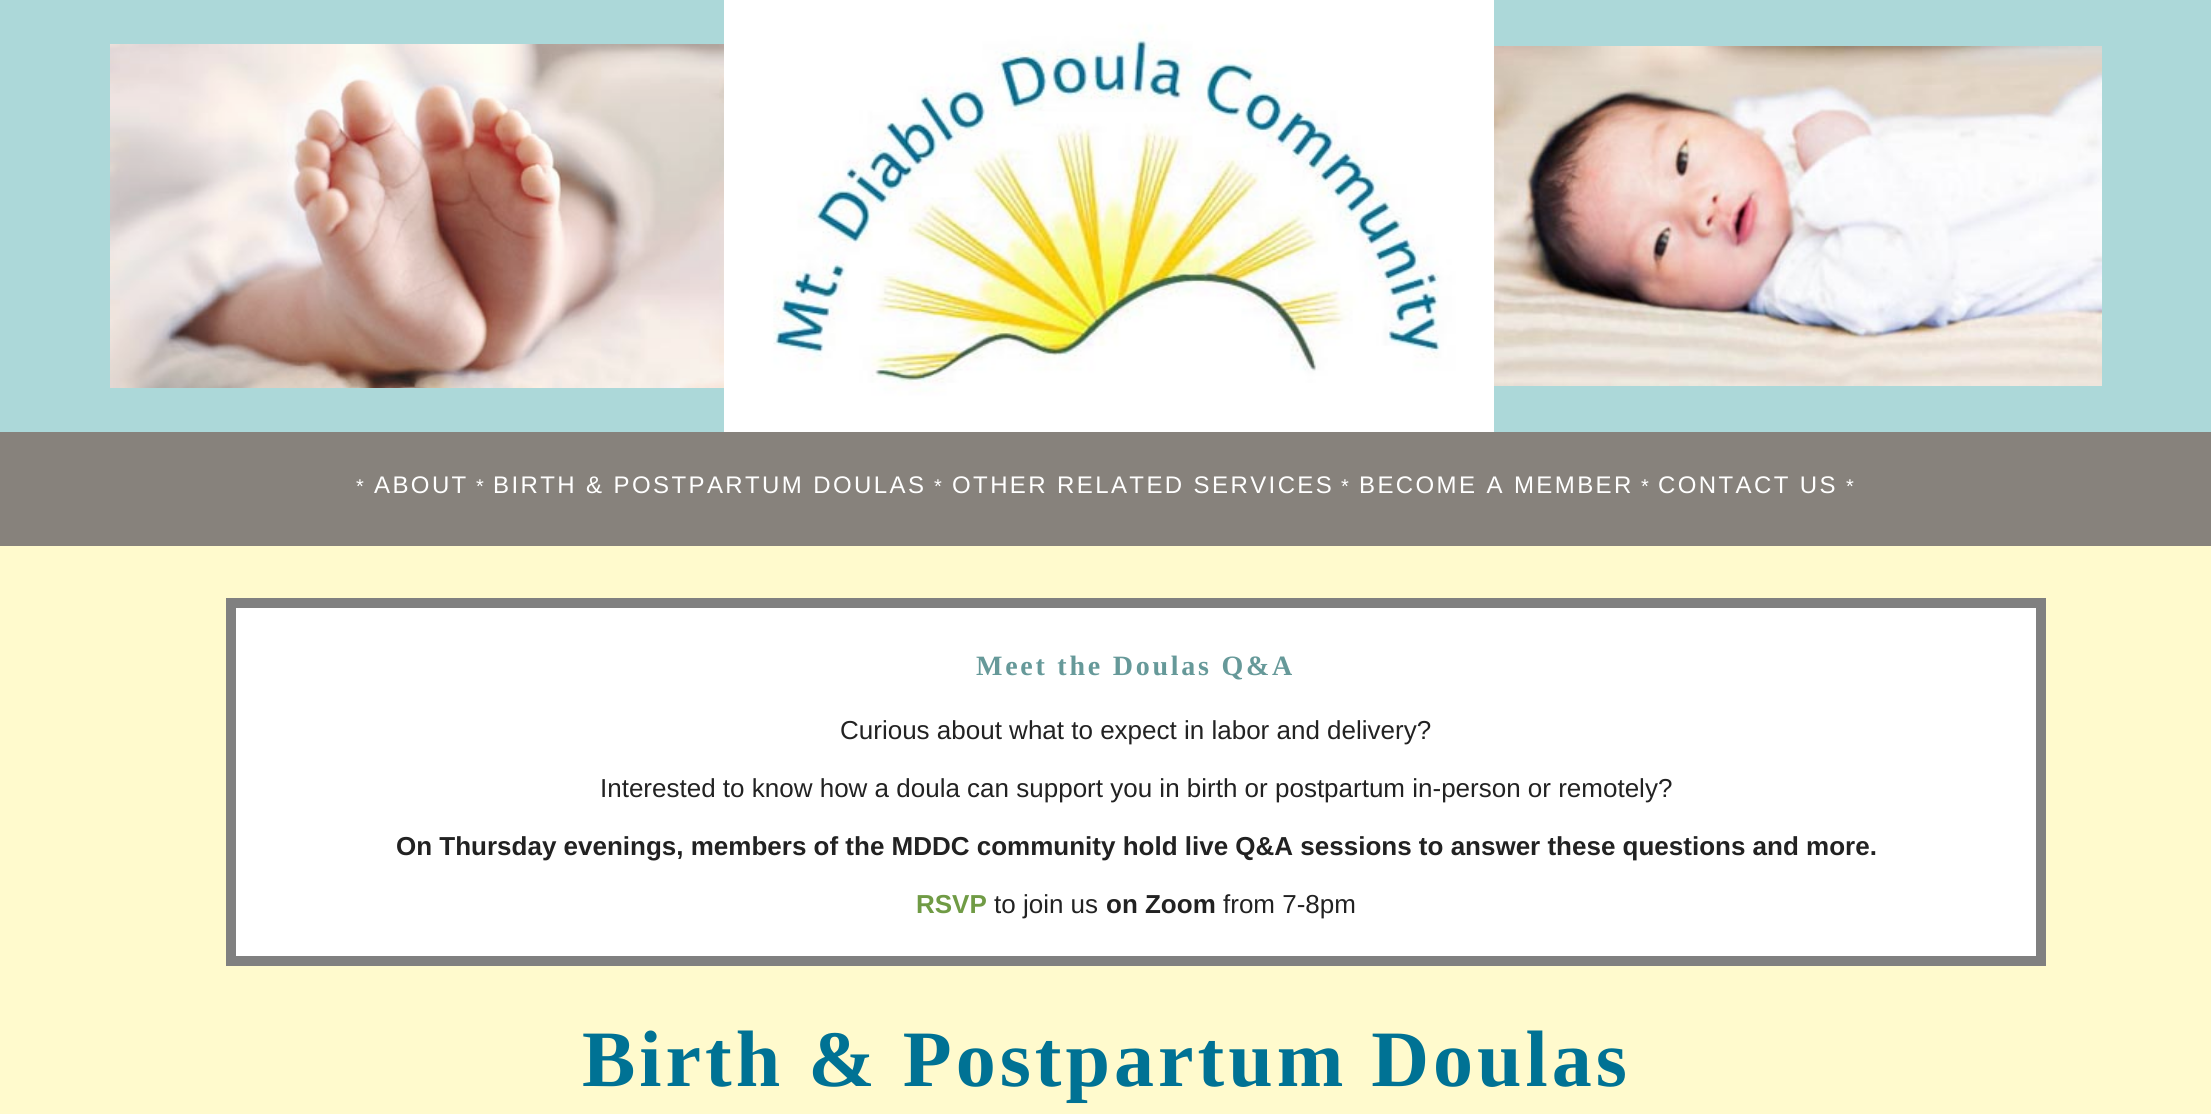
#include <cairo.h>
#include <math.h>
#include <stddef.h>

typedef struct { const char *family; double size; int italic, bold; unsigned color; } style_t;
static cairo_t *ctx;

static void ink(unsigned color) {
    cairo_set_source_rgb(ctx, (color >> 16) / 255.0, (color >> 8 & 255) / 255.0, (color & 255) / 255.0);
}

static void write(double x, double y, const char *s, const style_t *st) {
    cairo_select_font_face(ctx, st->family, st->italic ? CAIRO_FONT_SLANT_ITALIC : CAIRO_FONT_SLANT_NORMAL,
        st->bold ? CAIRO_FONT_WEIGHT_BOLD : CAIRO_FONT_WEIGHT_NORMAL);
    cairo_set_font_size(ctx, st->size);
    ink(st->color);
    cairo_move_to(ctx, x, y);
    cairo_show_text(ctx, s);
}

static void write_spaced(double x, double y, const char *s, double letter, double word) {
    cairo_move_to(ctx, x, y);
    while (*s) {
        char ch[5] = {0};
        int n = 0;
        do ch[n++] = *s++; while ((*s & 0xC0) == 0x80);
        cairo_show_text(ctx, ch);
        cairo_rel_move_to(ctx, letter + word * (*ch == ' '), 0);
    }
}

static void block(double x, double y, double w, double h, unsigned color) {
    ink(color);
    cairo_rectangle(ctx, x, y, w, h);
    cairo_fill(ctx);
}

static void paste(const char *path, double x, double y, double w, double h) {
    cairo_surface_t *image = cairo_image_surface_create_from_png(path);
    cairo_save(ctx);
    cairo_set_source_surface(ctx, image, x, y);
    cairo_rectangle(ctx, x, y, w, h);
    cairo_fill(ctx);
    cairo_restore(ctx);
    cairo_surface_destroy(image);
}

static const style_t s1 = {"Liberation Sans", 26, 0, 0, 0x222222};
static const style_t s2 = {"Liberation Sans", 26, 0, 1, 0x222222};
static const style_t s3 = {"Liberation Sans", 26, 0, 1, 0x709b45};

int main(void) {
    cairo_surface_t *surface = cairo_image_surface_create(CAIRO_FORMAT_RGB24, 2211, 1114);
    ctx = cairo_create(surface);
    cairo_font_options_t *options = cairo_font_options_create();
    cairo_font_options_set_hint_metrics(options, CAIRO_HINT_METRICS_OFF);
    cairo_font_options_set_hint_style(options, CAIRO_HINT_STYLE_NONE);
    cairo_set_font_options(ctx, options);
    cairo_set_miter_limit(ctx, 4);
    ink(0xfffacd);
    cairo_paint(ctx);
    block(0, 0, 2211, 432, 0xacd8d9);
    paste("pic1.png", 110, 44, 614, 344);
    paste("pic2.png", 724, 0, 770, 432);
    paste("pic3.png", 1494, 46, 608, 340);
    block(0, 432, 2211, 114, 0x87827c);
    cairo_select_font_face(ctx, "Liberation Sans", CAIRO_FONT_SLANT_NORMAL, CAIRO_FONT_WEIGHT_NORMAL);
    cairo_set_font_size(ctx, 20);
    ink(0xffffff);
    write_spaced(356, 493, "*", 2, 0);
    cairo_set_font_size(ctx, 24);
    write_spaced(374, 493, "ABOUT", 2.4, 0);
    cairo_set_font_size(ctx, 20);
    write_spaced(476, 493, "*", 2, 0);
    cairo_set_font_size(ctx, 24);
    write_spaced(493, 493, "BIRTH & POSTPARTUM DOULAS", 2.4, 0);
    cairo_set_font_size(ctx, 20);
    write_spaced(934, 493, "*", 2, 0);
    cairo_set_font_size(ctx, 24);
    write_spaced(952, 493, "OTHER RELATED SERVICES", 2.4, 0);
    cairo_set_font_size(ctx, 20);
    write_spaced(1341, 493, "*", 2, 0);
    cairo_set_font_size(ctx, 24);
    write_spaced(1359, 493, "BECOME A MEMBER", 2.4, 0);
    cairo_set_font_size(ctx, 20);
    write_spaced(1641, 493, "*", 2, 0);
    cairo_set_font_size(ctx, 24);
    write_spaced(1658, 493, "CONTACT US", 2.4, 0);
    cairo_set_font_size(ctx, 20);
    write_spaced(1846, 493, "*", 2, 0);
    cairo_rectangle(ctx, 231, 603, 1810, 358);
    cairo_fill_preserve(ctx);
    ink(0x808080);
    cairo_set_line_width(ctx, 10);
    cairo_stroke(ctx);
    cairo_select_font_face(ctx, "Liberation Serif", CAIRO_FONT_SLANT_NORMAL, CAIRO_FONT_WEIGHT_BOLD);
    cairo_set_font_size(ctx, 28);
    ink(0x669999);
    write_spaced(976, 675, "Meet the Doulas Q&A", 2.75, 0);
    write(840, 739, "Curious about what to expect in labor and delivery?", &s1);
    write(600, 797, "Interested to know how a doula can support you in birth or postpartum in-person or remotely?", &s1);
    write(396, 855, "On Thursday evenings, members of the MDDC community hold live Q&A sessions to answer these questions and more.", &s2);
    write(916, 913, "RSVP", &s3);
    write(994, 913, "to join us", &s1);
    write(1106, 913, "on Zoom", &s2);
    write(1223, 913, "from 7-8pm", &s1);
    cairo_select_font_face(ctx, "Liberation Serif", CAIRO_FONT_SLANT_NORMAL, CAIRO_FONT_WEIGHT_BOLD);
    cairo_set_font_size(ctx, 80);
    ink(0x007294);
    write_spaced(582, 1086, "Birth & Postpartum Doulas", 4, 0);
    cairo_surface_write_to_png(surface, "screenshot.png");
    cairo_font_options_destroy(options);
    cairo_destroy(ctx);
    cairo_surface_destroy(surface);
    return 0;
}
